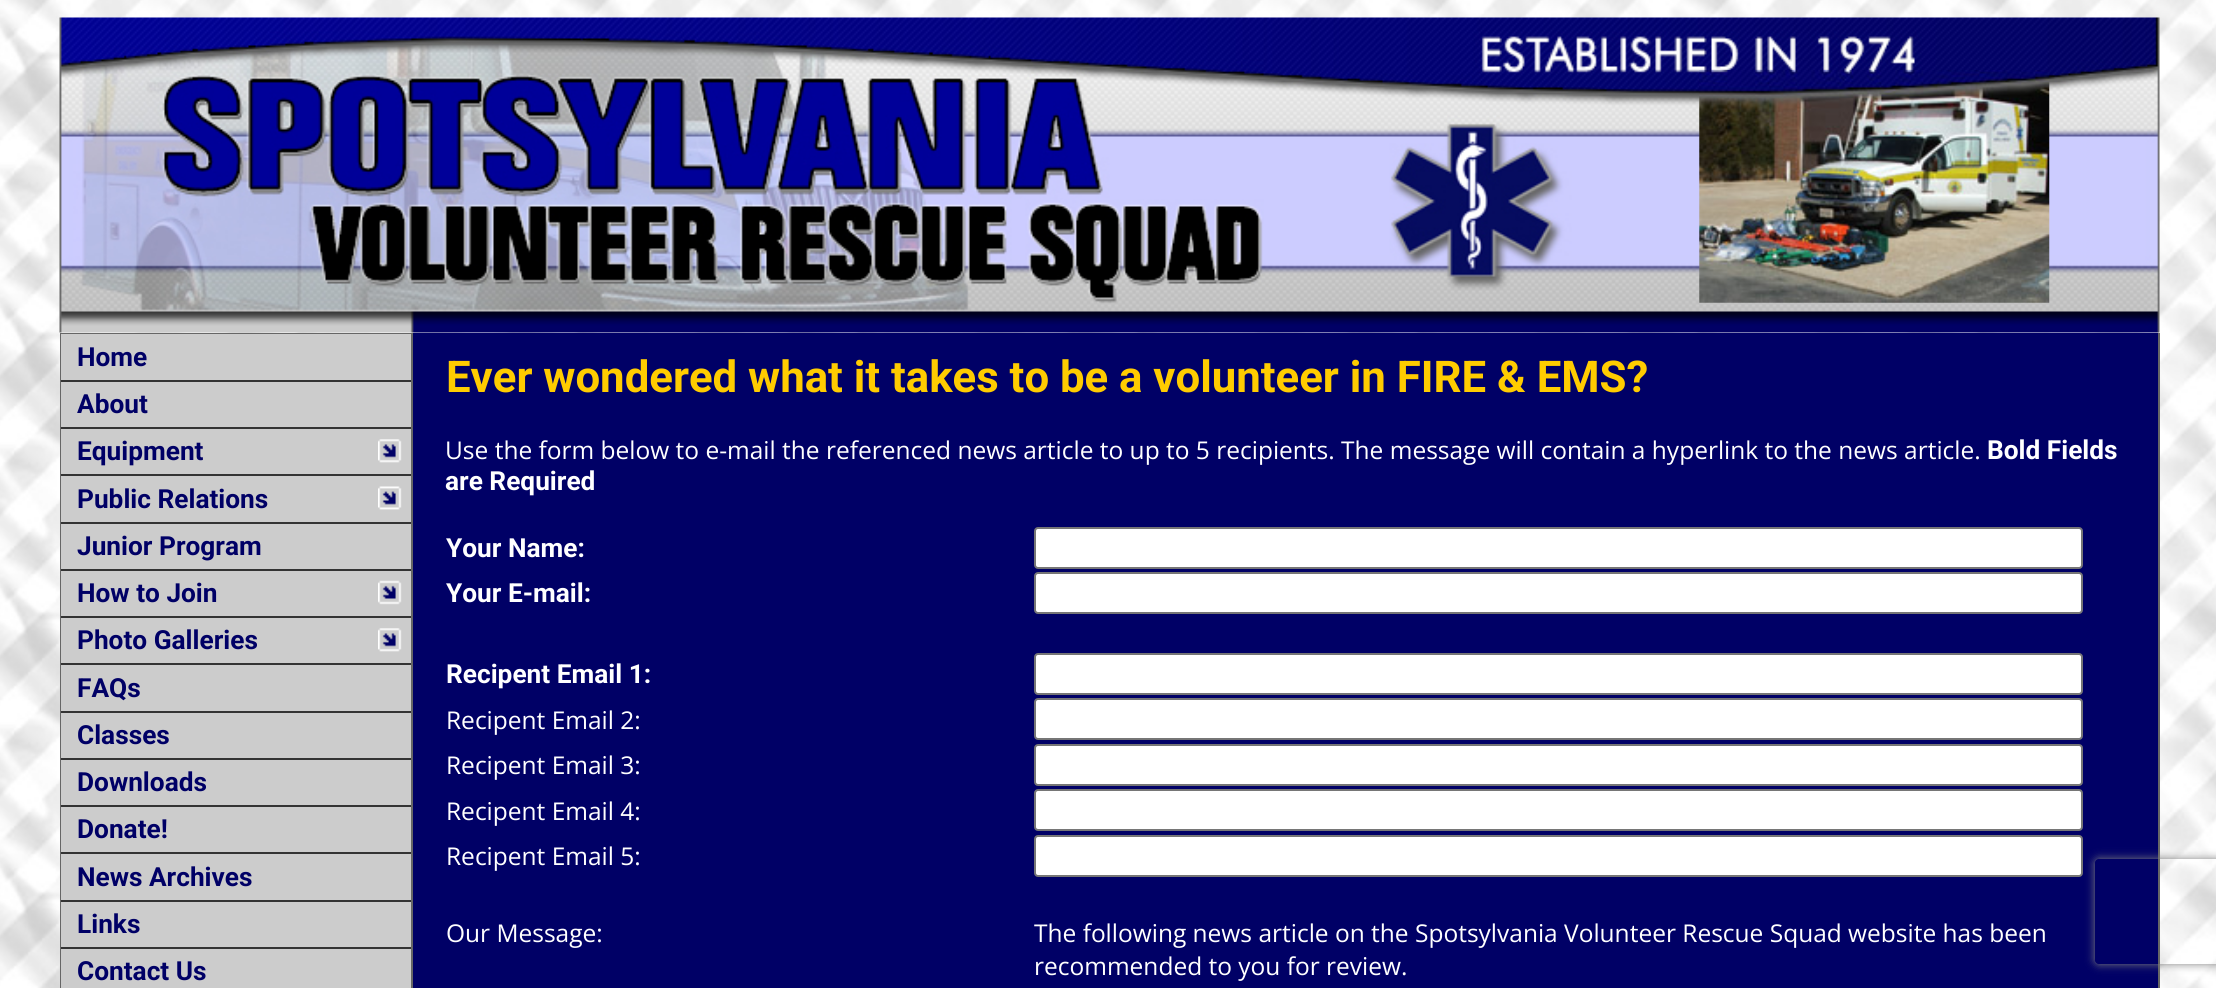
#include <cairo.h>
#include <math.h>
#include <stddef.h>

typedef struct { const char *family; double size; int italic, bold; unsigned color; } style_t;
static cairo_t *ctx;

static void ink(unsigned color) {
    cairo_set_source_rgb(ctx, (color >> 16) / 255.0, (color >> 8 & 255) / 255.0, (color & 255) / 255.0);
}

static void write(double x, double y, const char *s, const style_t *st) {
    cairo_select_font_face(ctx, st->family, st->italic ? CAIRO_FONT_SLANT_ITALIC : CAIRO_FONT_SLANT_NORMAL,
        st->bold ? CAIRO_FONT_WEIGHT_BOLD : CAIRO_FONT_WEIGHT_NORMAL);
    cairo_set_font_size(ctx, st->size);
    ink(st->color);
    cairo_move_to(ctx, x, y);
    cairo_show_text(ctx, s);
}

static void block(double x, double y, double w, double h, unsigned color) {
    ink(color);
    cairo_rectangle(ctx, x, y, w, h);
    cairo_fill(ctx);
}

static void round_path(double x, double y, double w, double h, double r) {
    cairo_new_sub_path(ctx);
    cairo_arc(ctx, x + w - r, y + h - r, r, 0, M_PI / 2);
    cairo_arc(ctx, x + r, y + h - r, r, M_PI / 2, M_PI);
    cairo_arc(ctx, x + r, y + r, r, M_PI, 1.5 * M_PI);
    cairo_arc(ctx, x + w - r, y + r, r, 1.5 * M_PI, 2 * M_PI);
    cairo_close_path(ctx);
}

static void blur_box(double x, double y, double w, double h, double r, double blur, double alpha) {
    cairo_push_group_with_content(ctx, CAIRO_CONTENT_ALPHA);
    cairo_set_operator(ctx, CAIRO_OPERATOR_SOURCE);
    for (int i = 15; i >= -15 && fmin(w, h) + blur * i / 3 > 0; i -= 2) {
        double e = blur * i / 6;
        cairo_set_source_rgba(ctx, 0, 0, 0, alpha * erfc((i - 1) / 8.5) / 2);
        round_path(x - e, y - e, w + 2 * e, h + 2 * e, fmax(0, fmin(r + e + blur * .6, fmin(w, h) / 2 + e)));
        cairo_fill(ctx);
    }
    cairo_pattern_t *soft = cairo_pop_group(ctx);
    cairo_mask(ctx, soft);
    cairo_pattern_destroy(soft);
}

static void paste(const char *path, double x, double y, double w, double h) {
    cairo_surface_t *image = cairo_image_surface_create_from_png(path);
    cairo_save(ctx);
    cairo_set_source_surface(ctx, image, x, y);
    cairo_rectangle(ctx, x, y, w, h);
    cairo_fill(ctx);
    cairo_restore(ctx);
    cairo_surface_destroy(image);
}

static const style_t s1 = {"Roboto", 26.25, 0, 1, 0x000066};
static const style_t s2 = {"Roboto", 43.75, 0, 1, 0xffcc00};
static const style_t s3 = {"Open Sans", 24.5, 0, 0, 0xffffff};
static const style_t s4 = {"Roboto", 26.25, 0, 1, 0xffffff};

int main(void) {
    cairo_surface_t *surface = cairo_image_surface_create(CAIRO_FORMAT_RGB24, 2216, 988);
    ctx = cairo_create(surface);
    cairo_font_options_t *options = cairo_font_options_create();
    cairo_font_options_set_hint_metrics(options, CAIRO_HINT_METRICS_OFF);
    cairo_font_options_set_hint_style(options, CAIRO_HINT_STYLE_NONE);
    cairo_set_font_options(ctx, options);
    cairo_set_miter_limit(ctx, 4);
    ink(0xffffff);
    cairo_paint(ctx);
    paste("pic1.png", 0, 0, 2216, 988);
    paste("pic2.png", 59, 17, 2101, 316);
    paste("pic3.png", 1699, 70, 351, 233);
    block(60, 333, 1, 655, 0x666666);
    block(61, 333, 350, 1, 0x666666);
    block(61, 334, 350, 654, 0xcccccc);
    write(77, 366, "Home", &s1);
    block(61, 380, 350, 2, 0x333333);
    write(77, 413, "About", &s1);
    block(61, 427, 350, 2, 0x333333);
    write(77, 460, "Equipment", &s1);
    paste("pic4.png", 378, 439, 24, 24);
    block(61, 474, 350, 2, 0x333333);
    write(77, 508, "Public Relations", &s1);
    paste("pic5.png", 378, 486, 24, 24);
    block(61, 522, 350, 2, 0x333333);
    write(77, 555, "Junior Program", &s1);
    block(61, 569, 350, 2, 0x333333);
    write(77, 602, "How to Join", &s1);
    paste("pic6.png", 378, 580, 24, 25);
    block(61, 616, 350, 2, 0x333333);
    write(77, 649, "Photo Galleries", &s1);
    paste("pic4.png", 378, 628, 24, 24);
    block(61, 663, 350, 2, 0x333333);
    write(77, 697, "FAQs", &s1);
    block(61, 711, 350, 2, 0x333333);
    write(77, 744, "Classes", &s1);
    block(61, 758, 350, 2, 0x333333);
    write(77, 791, "Downloads", &s1);
    block(61, 805, 350, 2, 0x333333);
    write(77, 838, "Donate!", &s1);
    block(61, 852, 350, 2, 0x333333);
    write(77, 886, "News Archives", &s1);
    block(61, 900, 350, 2, 0x333333);
    write(77, 933, "Links", &s1);
    block(61, 947, 350, 2, 0x333333);
    write(77, 980, "Contact Us", &s1);
    block(411, 333, 2, 655, 0x666666);
    block(413, 333, 1745, 655, 0x000066);
    write(446, 392, "Ever wondered what it takes to be a volunteer in FIRE & EMS?", &s2);
    write(445, 459, "Use the form below to e-mail the referenced news article to up to 5 recipients. The message will contain a hyperlink to the news article.", &s3);
    write(1987, 459, "Bold Fields", &s4);
    write(445, 490, "are Required", &s4);
    write(446, 557, "Your Name:", &s4);
    round_path(1035, 528, 1047, 40, 3);
    cairo_fill_preserve(ctx);
    ink(0x767676);
    cairo_stroke(ctx);
    write(446, 602, "Your E-mail:", &s4);
    round_path(1035, 573, 1047, 40, 3);
    cairo_fill_preserve(ctx);
    ink(0x767676);
    cairo_stroke(ctx);
    write(446, 683, "Recipent Email 1:", &s4);
    round_path(1035, 654, 1047, 40, 3);
    cairo_fill_preserve(ctx);
    ink(0x767676);
    cairo_stroke(ctx);
    write(446, 729, "Recipent Email 2:", &s3);
    round_path(1035, 699, 1047, 40, 3);
    cairo_fill_preserve(ctx);
    ink(0x767676);
    cairo_stroke(ctx);
    write(446, 774, "Recipent Email 3:", &s3);
    round_path(1035, 745, 1047, 40, 3);
    cairo_fill_preserve(ctx);
    ink(0x767676);
    cairo_stroke(ctx);
    write(446, 820, "Recipent Email 4:", &s3);
    round_path(1035, 790, 1047, 40, 3);
    cairo_fill_preserve(ctx);
    ink(0x767676);
    cairo_stroke(ctx);
    write(446, 865, "Recipent Email 5:", &s3);
    round_path(1035, 836, 1047, 40, 3);
    cairo_fill_preserve(ctx);
    ink(0x767676);
    cairo_stroke(ctx);
    write(446, 942, "Our Message:", &s3);
    write(1034, 942, "The following news article on the Spotsylvania Volunteer Rescue Squad website has been", &s3);
    write(1034, 975, "recommended to you for review.", &s3);
    block(2158, 333, 2, 655, 0x666666);
    cairo_save(ctx);
    cairo_set_fill_rule(ctx, CAIRO_FILL_RULE_EVEN_ODD);
    cairo_new_path(ctx);
    cairo_move_to(ctx, 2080, 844);
    cairo_line_to(ctx, 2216, 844);
    cairo_line_to(ctx, 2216, 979);
    cairo_line_to(ctx, 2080, 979);
    cairo_close_path(ctx);
    cairo_move_to(ctx, 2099, 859);
    cairo_line_to(ctx, 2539, 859);
    cairo_curve_to(ctx, 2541, 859, 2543, 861, 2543, 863);
    cairo_line_to(ctx, 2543, 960);
    cairo_curve_to(ctx, 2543, 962, 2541, 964, 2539, 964);
    cairo_line_to(ctx, 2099, 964);
    cairo_curve_to(ctx, 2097, 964, 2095, 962, 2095, 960);
    cairo_line_to(ctx, 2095, 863);
    cairo_curve_to(ctx, 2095, 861, 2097, 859, 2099, 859);
    cairo_close_path(ctx);
    cairo_clip(ctx);
    ink(0x808080);
    blur_box(2095, 859, 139, 105, 4, 4.5, 1);
    cairo_restore(ctx);
    cairo_surface_write_to_png(surface, "screenshot.png");
    cairo_font_options_destroy(options);
    cairo_destroy(ctx);
    cairo_surface_destroy(surface);
    return 0;
}
